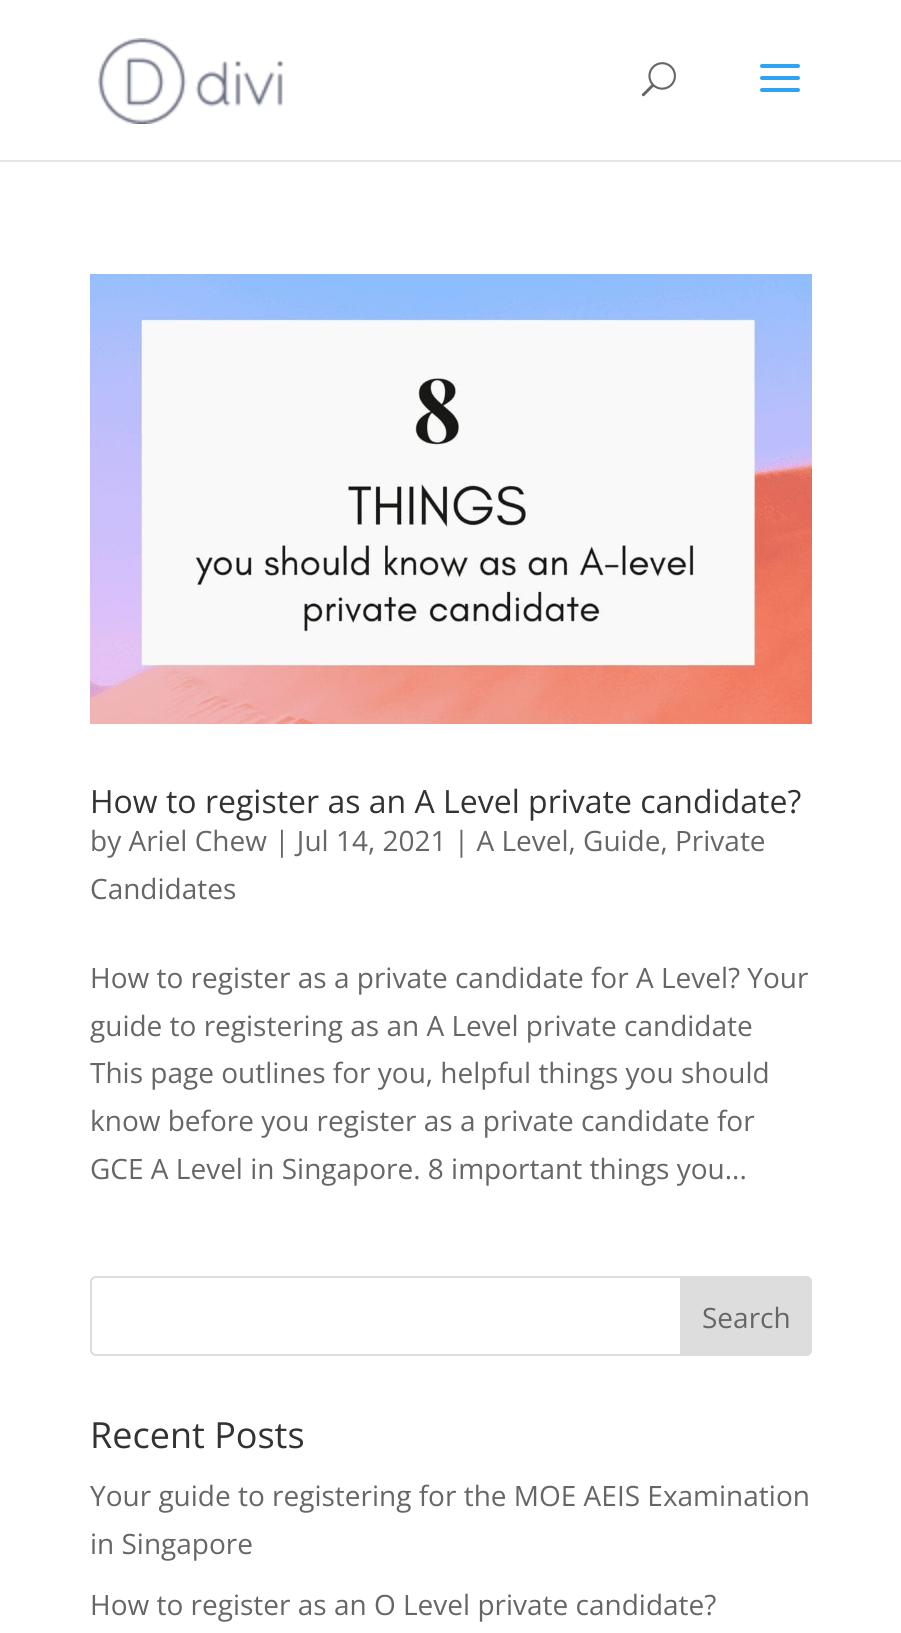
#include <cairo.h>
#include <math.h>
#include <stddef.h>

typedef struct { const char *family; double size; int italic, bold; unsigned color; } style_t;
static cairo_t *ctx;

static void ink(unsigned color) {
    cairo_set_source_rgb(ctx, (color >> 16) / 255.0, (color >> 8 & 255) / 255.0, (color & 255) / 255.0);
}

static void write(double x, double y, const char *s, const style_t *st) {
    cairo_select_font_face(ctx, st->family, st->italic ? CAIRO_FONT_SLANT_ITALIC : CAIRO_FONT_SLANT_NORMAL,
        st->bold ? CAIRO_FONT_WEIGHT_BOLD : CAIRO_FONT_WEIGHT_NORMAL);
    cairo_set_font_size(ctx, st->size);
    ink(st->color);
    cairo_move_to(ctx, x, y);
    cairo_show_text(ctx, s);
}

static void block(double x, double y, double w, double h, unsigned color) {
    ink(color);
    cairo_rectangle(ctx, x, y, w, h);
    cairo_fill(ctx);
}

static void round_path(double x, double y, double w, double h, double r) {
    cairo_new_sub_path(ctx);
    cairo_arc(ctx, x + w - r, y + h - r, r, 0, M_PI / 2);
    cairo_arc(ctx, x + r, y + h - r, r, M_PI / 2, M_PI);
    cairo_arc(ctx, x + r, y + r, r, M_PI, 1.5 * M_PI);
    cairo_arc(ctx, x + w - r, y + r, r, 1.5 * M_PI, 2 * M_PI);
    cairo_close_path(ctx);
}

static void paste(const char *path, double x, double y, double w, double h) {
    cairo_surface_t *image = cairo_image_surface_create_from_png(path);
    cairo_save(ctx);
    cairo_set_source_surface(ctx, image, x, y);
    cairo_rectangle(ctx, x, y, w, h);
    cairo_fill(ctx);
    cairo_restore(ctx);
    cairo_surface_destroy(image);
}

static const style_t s1 = {"Open Sans", 32, 0, 0, 0x333333};
static const style_t s2 = {"Open Sans", 28, 0, 0, 0x666666};
static const style_t s3 = {"Open Sans", 36, 0, 0, 0x333333};

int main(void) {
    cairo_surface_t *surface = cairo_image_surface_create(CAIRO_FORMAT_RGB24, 901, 1633);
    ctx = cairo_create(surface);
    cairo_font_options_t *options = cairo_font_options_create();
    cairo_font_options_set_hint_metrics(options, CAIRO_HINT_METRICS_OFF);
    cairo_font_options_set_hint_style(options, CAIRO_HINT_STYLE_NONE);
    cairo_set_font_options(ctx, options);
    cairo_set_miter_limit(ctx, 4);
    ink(0xffffff);
    cairo_paint(ctx);
    block(0, 160, 901, 2, 0xe6e6e6);
    paste("pic1.png", 98, 38, 186, 86);
    paste("pic2.png", 641, 62, 35, 35);
    paste("pic3.png", 760, 64, 40, 28);
    paste("pic4.png", 90, 274, 722, 450);
    write(90, 813, "How to register as an A Level private candidate?", &s1);
    write(90, 851, "by Ariel Chew | Jul 14, 2021 | A Level, Guide, Private", &s2);
    write(90, 899, "Candidates", &s2);
    write(90, 988, "How to register as a private candidate for A Level? Your", &s2);
    write(90, 1036, "guide to registering as an A Level private candidate", &s2);
    write(90, 1083, "This page outlines for you, helpful things you should", &s2);
    write(90, 1131, "know before you register as a private candidate for", &s2);
    write(90, 1179, "GCE A Level in Singapore. 8 important things you...", &s2);
    round_path(91, 1277, 720, 78, 5);
    ink(0xdddddd);
    cairo_stroke(ctx);
    cairo_new_path(ctx);
    cairo_move_to(ctx, 681, 1277);
    cairo_line_to(ctx, 806, 1277);
    cairo_curve_to(ctx, 809, 1277, 811, 1279, 811, 1282);
    cairo_line_to(ctx, 811, 1350);
    cairo_curve_to(ctx, 811, 1353, 809, 1355, 806, 1355);
    cairo_line_to(ctx, 681, 1355);
    cairo_close_path(ctx);
    cairo_fill_preserve(ctx);
    cairo_stroke(ctx);
    write(702, 1328, "Search", &s2);
    write(90, 1448, "Recent Posts", &s3);
    write(90, 1506, "Your guide to registering for the MOE AEIS Examination", &s2);
    write(90, 1554, "in Singapore", &s2);
    write(90, 1615, "How to register as an O Level private candidate?", &s2);
    cairo_surface_write_to_png(surface, "screenshot.png");
    cairo_font_options_destroy(options);
    cairo_destroy(ctx);
    cairo_surface_destroy(surface);
    return 0;
}
